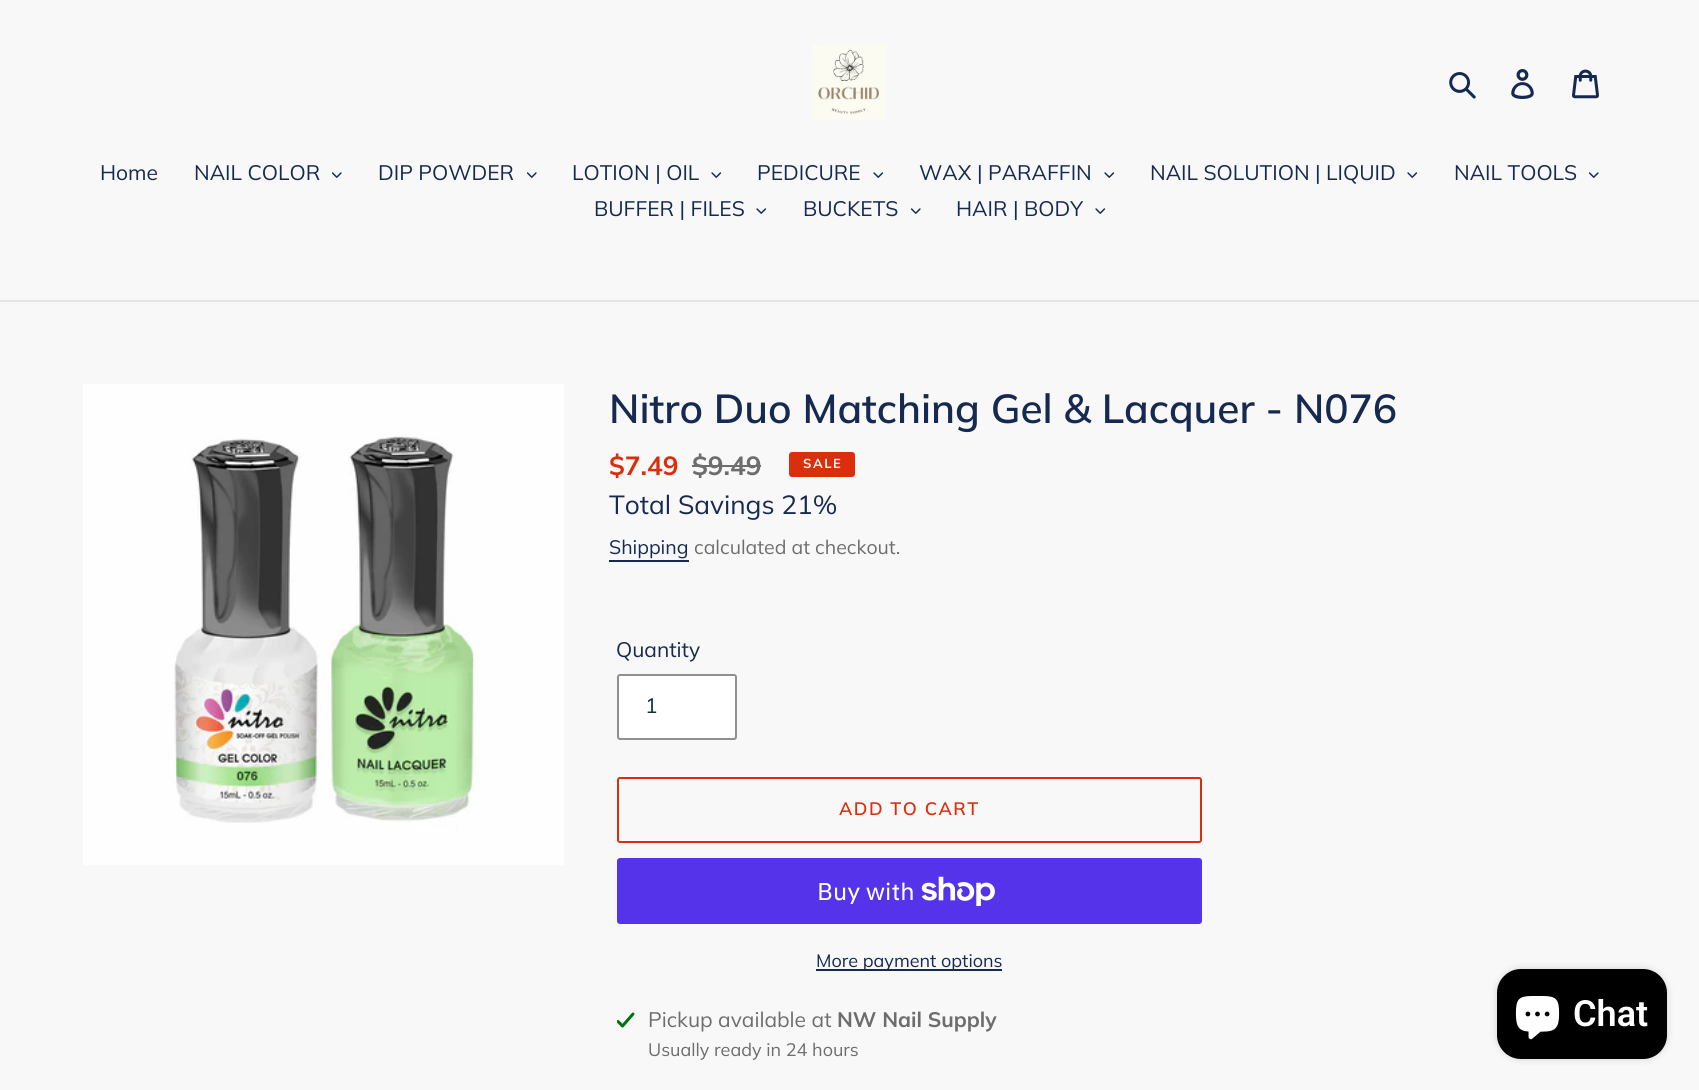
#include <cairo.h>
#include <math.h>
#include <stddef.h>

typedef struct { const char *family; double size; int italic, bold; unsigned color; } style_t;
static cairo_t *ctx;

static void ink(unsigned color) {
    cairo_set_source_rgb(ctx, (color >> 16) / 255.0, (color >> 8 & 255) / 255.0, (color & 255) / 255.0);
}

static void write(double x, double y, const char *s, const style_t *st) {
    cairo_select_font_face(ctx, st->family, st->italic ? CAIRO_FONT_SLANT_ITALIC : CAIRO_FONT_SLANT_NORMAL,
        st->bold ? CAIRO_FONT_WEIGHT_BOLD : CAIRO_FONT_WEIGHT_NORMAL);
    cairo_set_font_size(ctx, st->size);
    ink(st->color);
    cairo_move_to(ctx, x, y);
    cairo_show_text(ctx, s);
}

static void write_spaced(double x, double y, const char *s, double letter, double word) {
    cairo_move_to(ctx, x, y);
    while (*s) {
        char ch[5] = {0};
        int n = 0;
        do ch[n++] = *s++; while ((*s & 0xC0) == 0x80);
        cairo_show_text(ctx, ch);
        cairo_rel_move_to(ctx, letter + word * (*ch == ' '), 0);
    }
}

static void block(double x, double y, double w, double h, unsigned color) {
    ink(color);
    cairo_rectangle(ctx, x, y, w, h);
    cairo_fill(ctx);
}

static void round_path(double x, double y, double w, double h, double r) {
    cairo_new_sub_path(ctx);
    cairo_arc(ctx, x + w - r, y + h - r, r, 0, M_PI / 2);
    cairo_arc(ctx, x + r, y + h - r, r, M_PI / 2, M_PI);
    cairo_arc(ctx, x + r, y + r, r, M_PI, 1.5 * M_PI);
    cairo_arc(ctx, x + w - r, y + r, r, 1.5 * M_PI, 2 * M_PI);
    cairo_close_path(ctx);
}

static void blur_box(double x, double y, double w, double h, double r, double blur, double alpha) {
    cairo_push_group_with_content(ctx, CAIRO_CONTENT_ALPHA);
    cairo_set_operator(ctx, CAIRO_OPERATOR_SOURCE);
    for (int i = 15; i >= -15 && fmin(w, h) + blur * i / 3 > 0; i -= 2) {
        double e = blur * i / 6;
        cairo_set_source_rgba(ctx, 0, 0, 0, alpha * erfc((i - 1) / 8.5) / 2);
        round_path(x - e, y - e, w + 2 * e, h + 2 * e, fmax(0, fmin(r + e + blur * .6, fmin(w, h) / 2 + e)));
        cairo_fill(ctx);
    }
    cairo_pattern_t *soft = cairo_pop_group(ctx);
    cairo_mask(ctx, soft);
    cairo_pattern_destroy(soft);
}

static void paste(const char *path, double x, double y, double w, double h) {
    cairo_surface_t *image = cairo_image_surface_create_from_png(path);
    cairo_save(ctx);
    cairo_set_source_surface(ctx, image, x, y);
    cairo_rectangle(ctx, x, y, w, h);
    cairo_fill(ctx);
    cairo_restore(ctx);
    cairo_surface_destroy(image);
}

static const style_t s1 = {"Muli", 21, 0, 0, 0x162950};
static const style_t s2 = {"Muli SemiBold", 40.5, 0, 0, 0x162950};
static const style_t s3 = {"Muli", 26.25, 0, 1, 0xda2f0c};
static const style_t s4 = {"Muli", 26.25, 0, 1, 0x6d6d6d};
static const style_t s5 = {"Muli", 26.25, 0, 0, 0x162950};
static const style_t s6 = {"Muli", 19.5, 0, 0, 0x162950};
static const style_t s7 = {"Muli", 19.5, 0, 0, 0x6d6d6d};
static const style_t s8 = {"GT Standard", 24, 0, 0, 0xffffff};
static const style_t s9 = {"Muli", 18, 0, 0, 0x162950};
static const style_t s10 = {"Muli", 21, 0, 0, 0x6d6d6d};
static const style_t s11 = {"Muli", 21, 0, 1, 0x6d6d6d};
static const style_t s12 = {"Muli", 18, 0, 0, 0x6d6d6d};
static const style_t s13 = {"Roboto SemiBold", 36, 0, 0, 0xffffff};

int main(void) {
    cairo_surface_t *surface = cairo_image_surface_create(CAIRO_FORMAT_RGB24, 1699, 1090);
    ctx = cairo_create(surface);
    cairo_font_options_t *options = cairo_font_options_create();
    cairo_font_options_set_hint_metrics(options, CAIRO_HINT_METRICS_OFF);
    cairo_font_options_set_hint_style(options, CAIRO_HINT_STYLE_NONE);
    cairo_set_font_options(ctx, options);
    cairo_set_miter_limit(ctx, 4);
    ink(0xf8f8f8);
    cairo_paint(ctx);
    paste("pic1.png", 812, 45, 74, 75);
    paste("pic2.png", 1449, 72, 27, 27);
    paste("pic3.png", 1511, 69, 23, 30);
    paste("pic4.png", 1572, 69, 27, 30);
    block(0, 300, 1699, 2, 0xe4e4e4);
    write(100, 180, "Home", &s1);
    write(194, 180, "NAIL COLOR", &s1);
    paste("pic5.png", 332, 172, 10, 6);
    write(378, 180, "DIP POWDER", &s1);
    paste("pic5.png", 527, 172, 10, 6);
    write(572, 180, "LOTION | OIL", &s1);
    paste("pic6.png", 711, 172, 11, 6);
    write(757, 180, "PEDICURE", &s1);
    paste("pic6.png", 873, 172, 11, 6);
    write(919, 180, "WAX | PARAFFIN", &s1);
    paste("pic6.png", 1104, 172, 11, 6);
    write(1150, 180, "NAIL SOLUTION | LIQUID", &s1);
    paste("pic6.png", 1407, 172, 11, 6);
    write(1454, 180, "NAIL TOOLS", &s1);
    paste("pic5.png", 1589, 172, 10, 6);
    write(594, 216, "BUFFER | FILES", &s1);
    paste("pic6.png", 756, 208, 11, 6);
    write(803, 216, "BUCKETS", &s1);
    paste("pic5.png", 911, 208, 10, 6);
    write(956, 216, "HAIR | BODY", &s1);
    paste("pic6.png", 1095, 208, 11, 6);
    paste("pic7.png", 83, 384, 481, 481);
    write(609, 423, "Nitro Duo Matching Gel & Lacquer - N076", &s2);
    write(609, 475, "$7.49", &s3);
    write(692, 475, "$9.49", &s4);
    block(692, 465, 69, 2, 0x6d6d6d);
    ink(0xda2f0c);
    round_path(790, 453, 64, 23, 2);
    cairo_fill_preserve(ctx);
    cairo_stroke(ctx);
    cairo_set_font_size(ctx, 13);
    ink(0xf8f8f8);
    write_spaced(803, 468, "SALE", 1.5, 0);
    write(609, 514, "Total Savings 21%", &s5);
    write(609, 554, "Shipping", &s6);
    block(609, 560, 80, 2, 0x162950);
    write(694, 554, "calculated at checkout.", &s7);
    write(616, 657, "Quantity", &s1);
    ink(0xffffff);
    round_path(618, 675, 118, 64, 2);
    cairo_fill_preserve(ctx);
    ink(0x909090);
    cairo_stroke(ctx);
    write(645, 713, "1", &s1);
    round_path(618, 778, 583, 64, 2);
    ink(0xda2f0c);
    cairo_stroke(ctx);
    cairo_select_font_face(ctx, "Muli SemiBold", CAIRO_FONT_SLANT_NORMAL, CAIRO_FONT_WEIGHT_NORMAL);
    cairo_set_font_size(ctx, 18);
    write_spaced(839, 815, "ADD TO CART", 1.5, 0);
    ink(0x5433eb);
    round_path(617, 858, 585, 66, 3);
    cairo_fill(ctx);
    write(817, 900, "Buy with", &s8);
    paste("pic8.png", 921, 876, 74, 30);
    block(816, 969, 186, 2, 0x162950);
    write(816, 967, "More payment options", &s9);
    paste("pic9.png", 617, 1012, 18, 16);
    write(648, 1027, "Pickup available at", &s10);
    write(837, 1027, "NW Nail Supply", &s11);
    write(648, 1056, "Usually ready in 24 hours", &s12);
    ink(0x000000);
    blur_box(1497, 969, 170, 90, 24, 4, 0.15);
    ink(0x000000);
    round_path(1497, 969, 170, 90, 24);
    cairo_fill(ctx);
    paste("pic10.png", 1515, 996, 45, 44);
    write(1573, 1026, "Chat", &s13);
    cairo_surface_write_to_png(surface, "screenshot.png");
    cairo_font_options_destroy(options);
    cairo_destroy(ctx);
    cairo_surface_destroy(surface);
    return 0;
}
